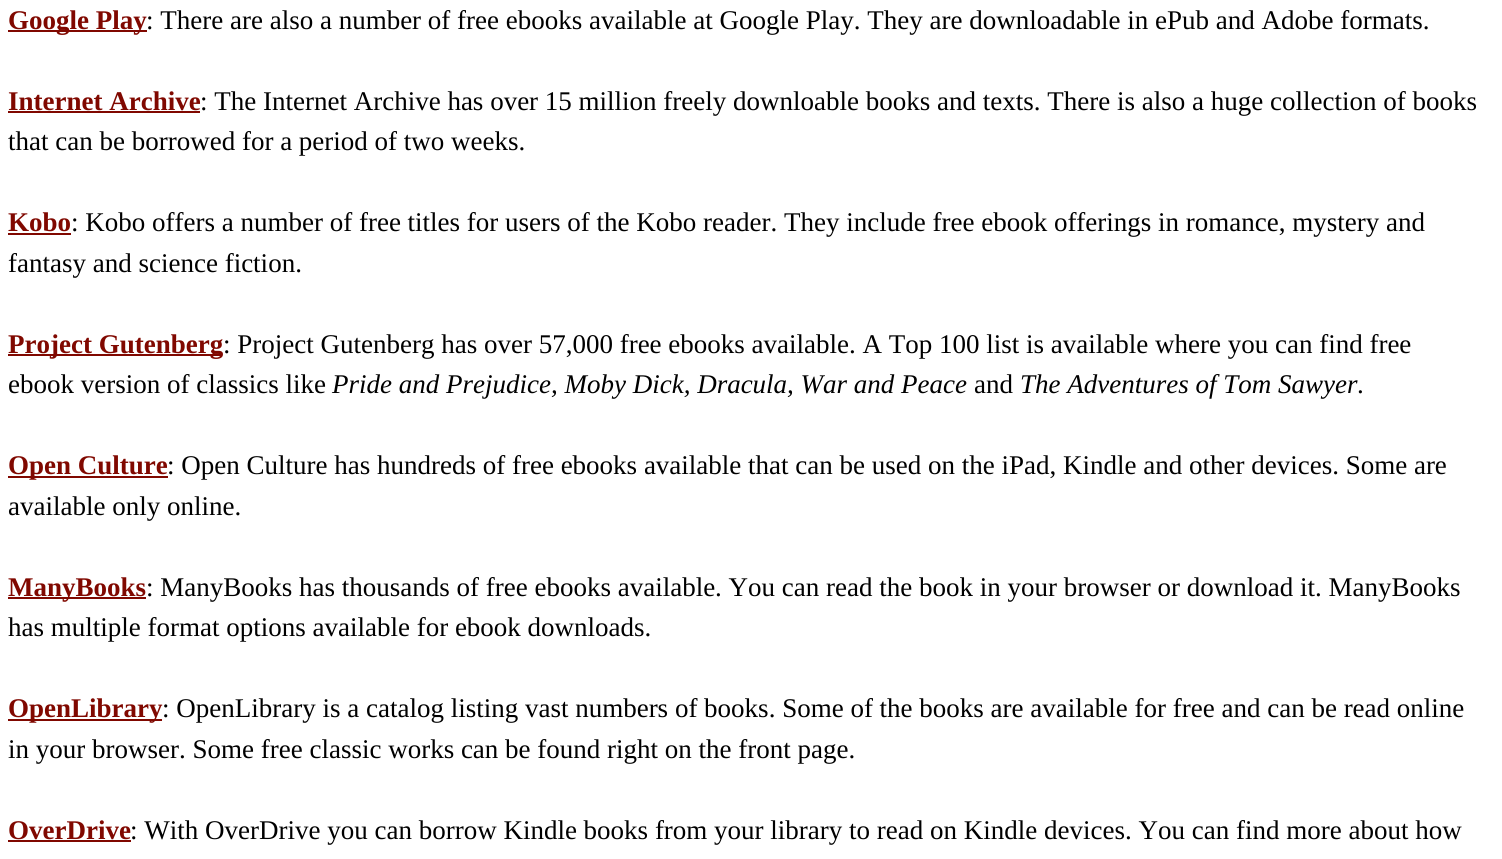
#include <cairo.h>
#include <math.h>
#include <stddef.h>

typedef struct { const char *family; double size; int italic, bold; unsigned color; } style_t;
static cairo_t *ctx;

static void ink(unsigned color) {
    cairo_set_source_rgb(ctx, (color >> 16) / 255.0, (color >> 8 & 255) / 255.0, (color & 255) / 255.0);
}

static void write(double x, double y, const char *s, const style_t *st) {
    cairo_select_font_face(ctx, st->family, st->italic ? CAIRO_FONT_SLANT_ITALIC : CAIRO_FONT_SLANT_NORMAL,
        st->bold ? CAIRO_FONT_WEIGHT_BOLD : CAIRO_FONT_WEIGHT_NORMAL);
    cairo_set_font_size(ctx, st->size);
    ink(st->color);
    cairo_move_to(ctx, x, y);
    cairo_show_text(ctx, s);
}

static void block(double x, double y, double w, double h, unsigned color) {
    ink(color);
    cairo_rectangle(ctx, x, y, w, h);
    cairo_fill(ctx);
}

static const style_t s1 = {"Liberation Serif", 27, 0, 1, 0x800800};
static const style_t s2 = {"Liberation Serif", 27, 0, 0, 0x000000};
static const style_t s3 = {"Liberation Serif", 27, 1, 0, 0x000000};

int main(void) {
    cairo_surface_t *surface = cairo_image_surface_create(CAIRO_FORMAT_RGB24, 1502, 859);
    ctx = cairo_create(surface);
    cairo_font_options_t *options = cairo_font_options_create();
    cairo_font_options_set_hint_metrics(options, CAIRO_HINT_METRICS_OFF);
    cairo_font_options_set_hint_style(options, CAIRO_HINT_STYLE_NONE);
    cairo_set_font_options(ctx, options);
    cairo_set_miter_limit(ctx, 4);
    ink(0xffffff);
    cairo_paint(ctx);
    block(8, 30, 139, 2, 0x800800);
    write(8, 29, "Google Play", &s1);
    write(146, 29, ": There are also a number of free ebooks available at Google Play. They are downloadable in ePub and Adobe formats.", &s2);
    write(8, 110, "Internet Archive", &s1);
    block(8, 111, 192, 2, 0x800800);
    write(200, 110, ": The Internet Archive has over 15 million freely downloable books and texts. There is also a huge collection of books", &s2);
    write(8, 150, "that can be borrowed for a period of two weeks.", &s2);
    write(8, 231, "Kobo", &s1);
    block(8, 233, 63, 2, 0x800800);
    write(71, 231, ": Kobo offers a number of free titles for users of the Kobo reader. They include free ebook offerings in romance, mystery and", &s2);
    write(8, 272, "fantasy and science fiction.", &s2);
    block(8, 354, 214, 2, 0x800800);
    write(8, 353, "Project Gutenberg", &s1);
    write(223, 353, ": Project Gutenberg has over 57,000 free ebooks available. A Top 100 list is available where you can find free", &s2);
    write(8, 393, "ebook version of classics like", &s2);
    write(332, 393, "Pride and Prejudice, Moby Dick, Dracula, War and Peace", &s3);
    write(974, 393, "and", &s2);
    write(1020, 393, "The Adventures of Tom Sawyer", &s3);
    write(1357, 393, ".", &s2);
    block(8, 476, 160, 2, 0x800800);
    write(8, 474, "Open Culture", &s1);
    write(167, 474, ": Open Culture has hundreds of free ebooks available that can be used on the iPad, Kindle and other devices. Some are", &s2);
    write(8, 515, "available only online.", &s2);
    block(8, 597, 138, 2, 0x800800);
    write(8, 596, "ManyBooks", &s1);
    write(146, 596, ": ManyBooks has thousands of free ebooks available. You can read the book in your browser or download it. ManyBooks", &s2);
    write(8, 636, "has multiple format options available for ebook downloads.", &s2);
    block(8, 719, 154, 2, 0x800800);
    write(8, 717, "OpenLibrary", &s1);
    write(162, 717, ": OpenLibrary is a catalog listing vast numbers of books. Some of the books are available for free and can be read online", &s2);
    write(8, 758, "in your browser. Some free classic works can be found right on the front page.", &s2);
    write(8, 839, "OverDrive", &s1);
    block(8, 840, 123, 2, 0x800800);
    write(130, 839, ": With OverDrive you can borrow Kindle books from your library to read on Kindle devices. You can find more about how", &s2);
    cairo_surface_write_to_png(surface, "screenshot.png");
    cairo_font_options_destroy(options);
    cairo_destroy(ctx);
    cairo_surface_destroy(surface);
    return 0;
}
